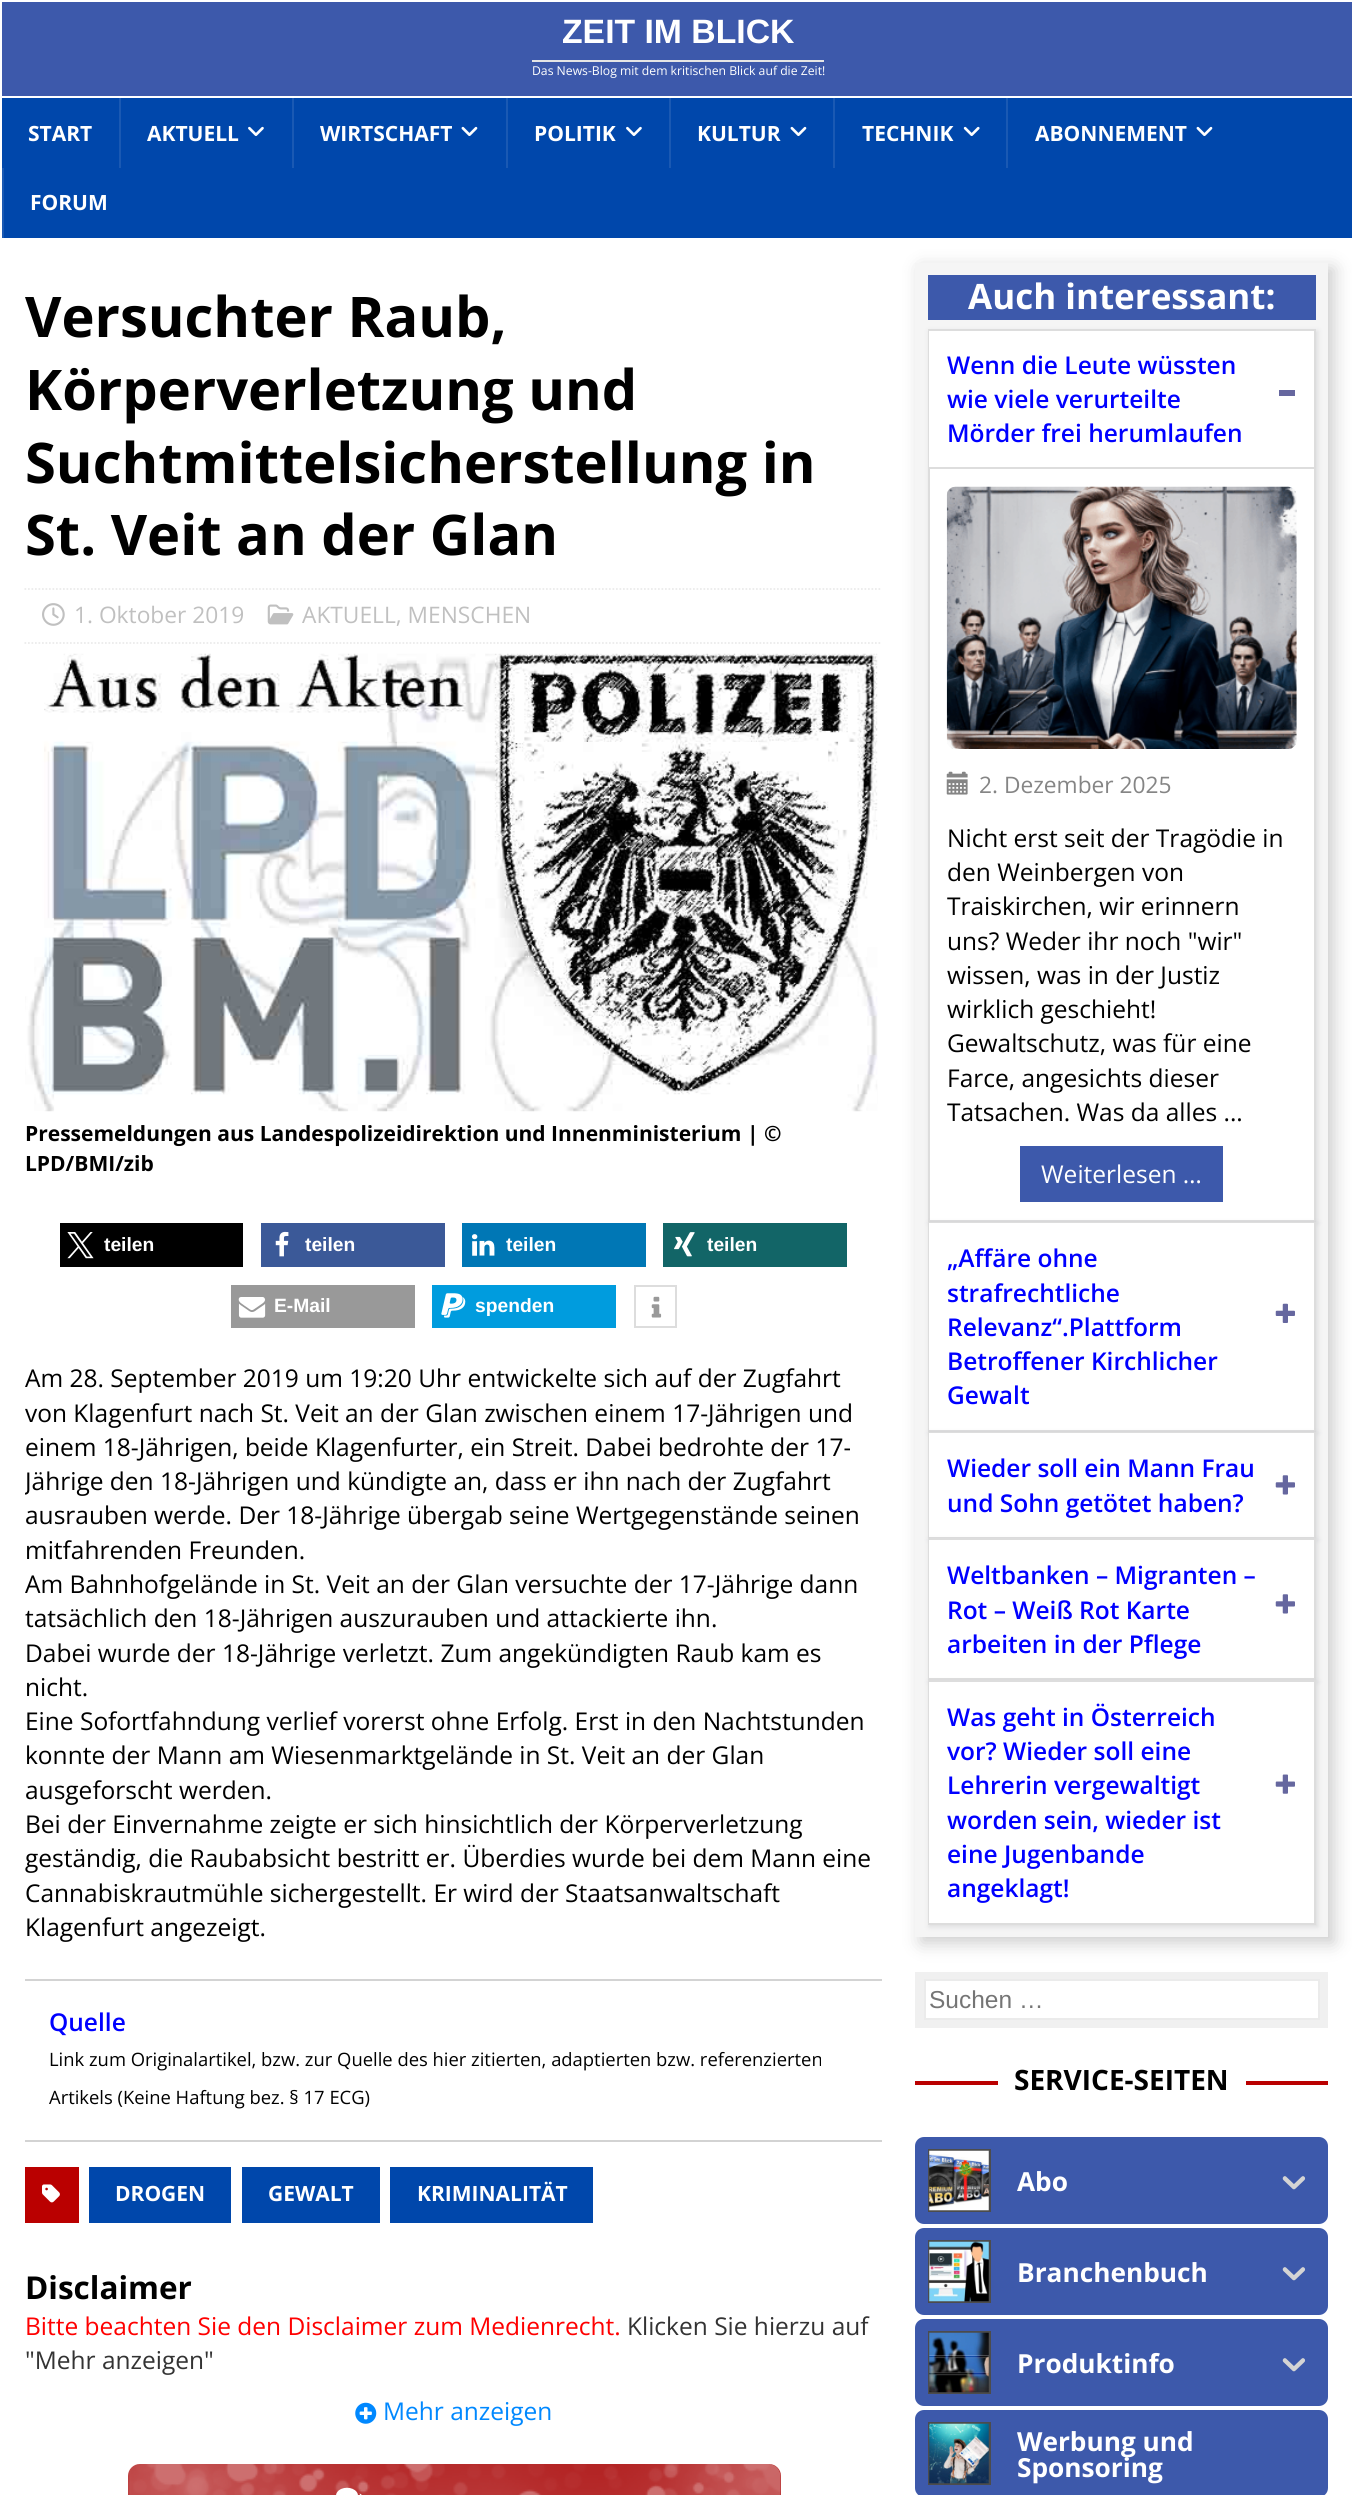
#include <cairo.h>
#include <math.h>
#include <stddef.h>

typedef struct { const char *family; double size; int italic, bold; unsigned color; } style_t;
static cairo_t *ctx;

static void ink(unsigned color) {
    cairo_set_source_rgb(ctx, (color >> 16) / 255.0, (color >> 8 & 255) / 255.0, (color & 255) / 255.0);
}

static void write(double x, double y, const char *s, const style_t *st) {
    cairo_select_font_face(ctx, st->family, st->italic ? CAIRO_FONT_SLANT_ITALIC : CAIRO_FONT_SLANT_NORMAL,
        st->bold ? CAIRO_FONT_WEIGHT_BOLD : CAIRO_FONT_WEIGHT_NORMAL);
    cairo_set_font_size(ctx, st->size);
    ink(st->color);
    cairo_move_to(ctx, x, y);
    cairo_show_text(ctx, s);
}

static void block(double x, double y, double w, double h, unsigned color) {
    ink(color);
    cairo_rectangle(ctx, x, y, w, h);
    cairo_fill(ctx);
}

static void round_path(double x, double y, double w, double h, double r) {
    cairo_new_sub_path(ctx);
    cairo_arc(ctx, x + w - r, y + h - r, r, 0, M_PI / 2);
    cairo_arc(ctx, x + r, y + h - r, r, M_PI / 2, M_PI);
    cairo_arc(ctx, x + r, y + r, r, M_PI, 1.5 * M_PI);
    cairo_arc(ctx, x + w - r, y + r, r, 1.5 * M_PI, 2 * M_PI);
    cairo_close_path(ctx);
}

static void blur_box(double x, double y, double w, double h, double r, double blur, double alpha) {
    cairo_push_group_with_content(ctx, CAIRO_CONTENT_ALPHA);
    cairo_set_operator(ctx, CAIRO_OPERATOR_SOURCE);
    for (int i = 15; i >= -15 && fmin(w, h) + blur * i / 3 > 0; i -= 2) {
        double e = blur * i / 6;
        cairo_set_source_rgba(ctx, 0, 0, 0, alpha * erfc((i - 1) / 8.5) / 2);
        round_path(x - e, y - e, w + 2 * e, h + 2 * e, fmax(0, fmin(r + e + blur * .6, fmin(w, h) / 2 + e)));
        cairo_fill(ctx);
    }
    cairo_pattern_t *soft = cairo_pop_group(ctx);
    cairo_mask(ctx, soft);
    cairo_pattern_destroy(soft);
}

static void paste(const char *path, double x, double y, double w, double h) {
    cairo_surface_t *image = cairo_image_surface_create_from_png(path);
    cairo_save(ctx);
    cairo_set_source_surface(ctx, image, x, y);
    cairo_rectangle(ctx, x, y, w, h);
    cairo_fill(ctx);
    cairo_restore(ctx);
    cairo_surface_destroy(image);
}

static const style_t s1 = {"Liberation Sans", 33.75, 0, 1, 0xffffff};
static const style_t s2 = {"Open Sans", 12.2, 0, 0, 0xffffff};
static const style_t s3 = {"Open Sans", 21, 0, 1, 0xffffff};
static const style_t s4 = {"Open Sans", 56, 0, 1, 0x000000};
static const style_t s5 = {"Open Sans", 22.75, 0, 0, 0xc0c0c0};
static const style_t s6 = {"Open Sans", 21, 0, 1, 0x000000};
static const style_t s7 = {"Liberation Sans", 19.25, 0, 1, 0xffffff};
static const style_t s8 = {"Open Sans", 24.5, 0, 0, 0x000000};
static const style_t s9 = {"Open Sans SemiBold", 24.5, 0, 0, 0x0000ff};
static const style_t s10 = {"Open Sans", 18.4, 0, 0, 0x000000};
static const style_t s11 = {"Open Sans", 31.5, 0, 1, 0x000000};
static const style_t s12 = {"Open Sans", 24.5, 0, 0, 0xff0000};
static const style_t s13 = {"Open Sans", 24.5, 0, 0, 0x333333};
static const style_t s14 = {"Open Sans", 24.5, 0, 0, 0x0088ff};
static const style_t s15 = {"Open Sans", 35, 0, 1, 0xffffff};
static const style_t s16 = {"Open Sans", 22.75, 0, 0, 0x858585};
static const style_t s17 = {"Open Sans", 24.5, 0, 0, 0xffffff};
static const style_t s18 = {"Liberation Sans", 24.5, 0, 0, 0x757575};
static const style_t s19 = {"Open Sans", 28, 0, 1, 0x000000};
static const style_t s20 = {"Open Sans", 26.25, 0, 1, 0xffffff};

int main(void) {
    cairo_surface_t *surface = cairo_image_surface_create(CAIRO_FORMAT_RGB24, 1352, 2495);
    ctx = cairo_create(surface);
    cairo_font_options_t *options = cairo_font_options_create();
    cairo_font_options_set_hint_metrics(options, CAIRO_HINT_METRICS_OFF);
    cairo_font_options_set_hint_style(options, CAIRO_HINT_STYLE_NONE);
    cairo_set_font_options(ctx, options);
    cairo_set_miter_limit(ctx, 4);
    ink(0x0047ab);
    cairo_paint(ctx);
    block(0, 0, 1352, 2, 0xffffff);
    block(0, 0, 2, 96, 0xffffff);
    block(2, 2, 1350, 94, 0x3d59ab);
    write(562, 43, "ZEIT IM BLICK", &s1);
    block(532, 60, 292, 2, 0xe5e5e5);
    write(532, 75, "Das News-Blog mit dem kritischen Blick auf die Zeit!", &s2);
    block(0, 96, 1352, 2, 0xffffff);
    block(0, 96, 2, 142, 0xffffff);
    write(28, 141, "START", &s3);
    block(119, 98, 2, 70, 0x1a59b3);
    write(147, 141, "AKTUELL", &s3);
    paste("pic1.png", 248, 126, 16, 10);
    block(292, 98, 2, 70, 0x1a59b3);
    write(320, 141, "WIRTSCHAFT", &s3);
    paste("pic2.png", 461, 126, 17, 10);
    block(506, 98, 2, 70, 0x1a59b3);
    write(534, 141, "POLITIK", &s3);
    paste("pic1.png", 626, 126, 16, 10);
    block(669, 98, 2, 70, 0x1a59b3);
    write(697, 141, "KULTUR", &s3);
    paste("pic2.png", 790, 126, 17, 10);
    block(833, 98, 2, 70, 0x1a59b3);
    write(862, 141, "TECHNIK", &s3);
    paste("pic3.png", 963, 126, 17, 10);
    block(1006, 98, 2, 70, 0x1a59b3);
    write(1035, 141, "ABONNEMENT", &s3);
    paste("pic2.png", 1196, 126, 17, 10);
    block(2, 168, 2, 70, 0x1a59b3);
    write(30, 210, "FORUM", &s3);
    block(0, 238, 1352, 2257, 0xffffff);
    write(25, 337, "Versuchter Raub,", &s4);
    write(25, 410, "Körperverletzung und", &s4);
    write(25, 483, "Suchtmittelsicherstellung in", &s4);
    write(25, 555, "St. Veit an der Glan", &s4);
    cairo_new_path(ctx);
    cairo_move_to(ctx, 24.5, 589);
    cairo_line_to(ctx, 882, 589);
    ink(0xebebeb);
    cairo_set_line_width(ctx, 1.8);
    cairo_set_dash(ctx, (double[]){1.75, 1.75}, 2, 0);
    cairo_stroke(ctx);
    cairo_new_path(ctx);
    cairo_move_to(ctx, 24.5, 643);
    cairo_line_to(ctx, 882, 643);
    cairo_stroke(ctx);
    paste("pic4.png", 42, 603, 23, 23);
    write(74, 623, "1. Oktober 2019", &s5);
    paste("pic5.png", 267, 604, 27, 21);
    write(302, 623, "AKTUELL, MENSCHEN", &s5);
    paste("pic6.png", 25, 653, 853, 459);
    write(25, 1141, "Pressemeldungen aus Landespolizeidirektion und Innenministerium | ©", &s6);
    write(25, 1171, "LPD/BMI/zib", &s6);
    block(60, 1223, 183, 44, 0x000000);
    paste("pic7.png", 67, 1232, 27, 27);
    write(104, 1251, "teilen", &s7);
    block(261, 1223, 184, 44, 0x3b5998);
    paste("pic8.png", 275, 1231, 14, 26);
    write(305, 1251, "teilen", &s7);
    block(462, 1223, 184, 44, 0x0077b5);
    paste("pic9.png", 471, 1234, 24, 22);
    write(506, 1251, "teilen", &s7);
    block(663, 1223, 184, 44, 0x126567);
    paste("pic10.png", 674, 1232, 21, 25);
    write(707, 1251, "teilen", &s7);
    block(231, 1285, 184, 43, 0x999999);
    paste("pic11.png", 238, 1297, 28, 21);
    write(274, 1312, "E-Mail", &s7);
    block(432, 1285, 184, 43, 0x009cde);
    paste("pic12.png", 441, 1293, 25, 25);
    write(475, 1312, "spenden", &s7);
    cairo_rectangle(ctx, 635, 1286, 41, 41);
    ink(0xdddddd);
    cairo_set_line_width(ctx, 2);
    cairo_set_dash(ctx, NULL, 0, 0);
    cairo_stroke(ctx);
    paste("pic13.png", 651, 1296, 11, 22);
    write(25, 1387, "Am 28. September 2019 um 19:20 Uhr entwickelte sich auf der Zugfahrt", &s8);
    write(25, 1422, "von Klagenfurt nach St. Veit an der Glan zwischen einem 17-Jährigen und", &s8);
    write(25, 1456, "einem 18-Jährigen, beide Klagenfurter, ein Streit. Dabei bedrohte der 17-", &s8);
    cairo_save(ctx);
    cairo_rectangle(ctx, 25, 263, 857, 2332);
    cairo_clip(ctx);
    write(25, 1490, "Jährige den 18-Jährigen und kündigte an, dass er ihn nach der Zugfahrt", &s8);
    cairo_restore(ctx);
    write(25, 1524, "ausrauben werde. Der 18-Jährige übergab seine Wertgegenstände seinen", &s8);
    write(25, 1559, "mitfahrenden Freunden.", &s8);
    write(25, 1593, "Am Bahnhofgelände in St. Veit an der Glan versuchte der 17-Jährige dann", &s8);
    write(25, 1627, "tatsächlich den 18-Jährigen auszurauben und attackierte ihn.", &s8);
    write(25, 1662, "Dabei wurde der 18-Jährige verletzt. Zum angekündigten Raub kam es", &s8);
    write(25, 1696, "nicht.", &s8);
    write(25, 1730, "Eine Sofortfahndung verlief vorerst ohne Erfolg. Erst in den Nachtstunden", &s8);
    write(25, 1764, "konnte der Mann am Wiesenmarktgelände in St. Veit an der Glan", &s8);
    write(25, 1799, "ausgeforscht werden.", &s8);
    write(25, 1833, "Bei der Einvernahme zeigte er sich hinsichtlich der Körperverletzung", &s8);
    write(25, 1867, "geständig, die Raubabsicht bestritt er. Überdies wurde bei dem Mann eine", &s8);
    write(25, 1902, "Cannabiskrautmühle sichergestellt. Er wird der Staatsanwaltschaft", &s8);
    write(25, 1936, "Klagenfurt angezeigt.", &s8);
    block(25, 1979, 857, 2, 0xd3d3d3);
    block(25, 2140, 857, 2, 0xd3d3d3);
    write(49, 2031, "Quelle", &s9);
    write(49, 2066, "Link zum Originalartikel, bzw. zur Quelle des hier zitierten, adaptierten bzw. referenzierten", &s10);
    write(49, 2104, "Artikels (Keine Haftung bez. § 17 ECG)", &s10);
    block(25, 2167, 54, 56, 0xba0000);
    paste("pic14.png", 42, 2184, 18, 19);
    block(89, 2167, 142, 56, 0x0047ab);
    write(115, 2201, "DROGEN", &s3);
    block(242, 2167, 138, 56, 0x0047ab);
    write(268, 2201, "GEWALT", &s3);
    block(390, 2167, 203, 56, 0x0047ab);
    write(417, 2201, "KRIMINALITÄT", &s3);
    write(25, 2299, "Disclaimer", &s11);
    write(25, 2335, "Bitte beachten Sie den Disclaimer zum Medienrecht.", &s12);
    write(627, 2335, "Klicken Sie hierzu auf", &s13);
    write(25, 2369, "\"Mehr anzeigen\"", &s13);
    paste("pic15.png", 355, 2402, 22, 22);
    write(383, 2420, "Mehr anzeigen", &s14);
    ink(0xb22222);
    round_path(128, 2464, 653, 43, 12);
    cairo_fill(ctx);
    paste("pic16.png", 128, 2464, 653, 31);
    paste("pic17.png", 336, 2487, 26, 8);
    ink(0x000000);
    blur_box(921, 268, 413, 1675, 0, 9, 0.2);
    block(915, 263, 413, 1674, 0xf5f5f5);
    block(928, 275, 388, 45, 0x3d59ab);
    write(968, 309, "Auch interessant:", &s15);
    ink(0xb0b2b5);
    blur_box(929, 331, 389, 892, 0, 2.5, 0.34);
    block(930, 469, 384, 751, 0xffffff);
    cairo_rectangle(ctx, 929, 330, 386, 891);
    ink(0xdddddd);
    cairo_stroke(ctx);
    block(929, 331, 385, 136, 0xffffff);
    write(947, 374, "Wenn die Leute wüssten", &s9);
    write(947, 408, "wie viele verurteilte", &s9);
    write(947, 442, "Mörder frei herumlaufen", &s9);
    block(1279, 390, 16, 6, 0x66679f);
    block(929, 467, 385, 2, 0xdddddd);
    paste("pic18.png", 946, 486, 351, 263);
    paste("pic19.png", 946, 771, 22, 24);
    write(979, 793, "2. Dezember 2025", &s16);
    write(947, 847, "Nicht erst seit der Tragödie in", &s8);
    write(947, 881, "den Weinbergen von", &s8);
    write(947, 915, "Traiskirchen, wir erinnern", &s8);
    write(947, 950, "uns? Weder ihr noch \"wir\"", &s8);
    write(947, 984, "wissen, was in der Justiz", &s8);
    write(947, 1018, "wirklich geschieht!", &s8);
    write(947, 1052, "Gewaltschutz, was für eine", &s8);
    write(947, 1087, "Farce, angesichts dieser", &s8);
    write(947, 1121, "Tatsachen. Was da alles ...", &s8);
    block(1020, 1146, 203, 56, 0x3d59ab);
    write(1041, 1183, "Weiterlesen …", &s17);
    ink(0xb0b2b5);
    blur_box(929, 1223, 389, 210, 0, 2.5, 0.34);
    cairo_rectangle(ctx, 929, 1223, 386, 208);
    ink(0xdddddd);
    cairo_stroke(ctx);
    block(929, 1223, 385, 207, 0xffffff);
    write(947, 1267, "„Affäre ohne", &s9);
    write(947, 1302, "strafrechtliche", &s9);
    write(947, 1336, "Relevanz“.Plattform", &s9);
    write(947, 1370, "Betroffener Kirchlicher", &s9);
    write(947, 1404, "Gewalt", &s9);
    paste("pic20.png", 1275, 1303, 20, 20);
    ink(0xb0b2b5);
    blur_box(929, 1433, 389, 107, 0, 2.5, 0.34);
    cairo_rectangle(ctx, 929, 1433, 386, 104);
    ink(0xdddddd);
    cairo_stroke(ctx);
    block(929, 1433, 385, 104, 0xffffff);
    write(947, 1477, "Wieder soll ein Mann Frau", &s9);
    write(947, 1512, "und Sohn getötet haben?", &s9);
    paste("pic21.png", 1275, 1475, 20, 20);
    ink(0xb0b2b5);
    blur_box(929, 1540, 389, 142, 0, 2.5, 0.34);
    cairo_rectangle(ctx, 929, 1539, 386, 140);
    ink(0xdddddd);
    cairo_stroke(ctx);
    block(929, 1540, 385, 138, 0xffffff);
    write(947, 1584, "Weltbanken – Migranten –", &s9);
    write(947, 1619, "Rot – Weiß Rot Karte", &s9);
    write(947, 1653, "arbeiten in der Pflege", &s9);
    paste("pic21.png", 1275, 1594, 20, 20);
    ink(0xb0b2b5);
    blur_box(929, 1682, 389, 245, 0, 2.5, 0.34);
    cairo_rectangle(ctx, 929, 1681, 386, 243);
    ink(0xdddddd);
    cairo_stroke(ctx);
    block(929, 1682, 385, 241, 0xffffff);
    write(947, 1726, "Was geht in Österreich", &s9);
    write(947, 1760, "vor? Wieder soll eine", &s9);
    write(947, 1794, "Lehrerin vergewaltigt", &s9);
    write(947, 1829, "worden sein, wieder ist", &s9);
    write(947, 1863, "eine Jugenbande", &s9);
    write(947, 1897, "angeklagt!", &s9);
    paste("pic22.png", 1275, 1774, 20, 20);
    block(915, 1972, 413, 56, 0xf0f0f0);
    ink(0xffffff);
    cairo_rectangle(ctx, 925, 1980, 394, 39);
    cairo_fill_preserve(ctx);
    ink(0xebebeb);
    cairo_stroke(ctx);
    write(929, 2008, "Suchen …", &s18);
    block(915, 2081, 413, 4, 0xba0000);
    block(998, 2081, 248, 4, 0xffffff);
    write(1014, 2090, "SERVICE-SEITEN", &s19);
    ink(0x3d59ab);
    round_path(915, 2137, 413, 87, 9);
    cairo_fill(ctx);
    block(928, 2149, 63, 63, 0x4c4c4c);
    paste("pic23.png", 929, 2150, 60, 61);
    write(1017, 2191, "Abo", &s20);
    paste("pic24.png", 1282, 2176, 24, 14);
    ink(0x3d59ab);
    round_path(915, 2228, 413, 87, 9);
    cairo_fill(ctx);
    block(928, 2240, 63, 63, 0x4c4c4c);
    paste("pic25.png", 929, 2241, 60, 61);
    write(1017, 2282, "Branchenbuch", &s20);
    paste("pic24.png", 1282, 2267, 24, 14);
    ink(0x3d59ab);
    round_path(915, 2319, 413, 87, 9);
    cairo_fill(ctx);
    block(928, 2331, 63, 63, 0x4c4c4c);
    paste("pic26.png", 929, 2332, 60, 61);
    write(1017, 2373, "Produktinfo", &s20);
    paste("pic24.png", 1282, 2358, 24, 14);
    ink(0x3d59ab);
    round_path(915, 2410, 413, 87, 9);
    cairo_fill(ctx);
    block(928, 2422, 63, 63, 0x4c4c4c);
    paste("pic27.png", 929, 2423, 60, 61);
    write(1017, 2451, "Werbung und", &s20);
    write(1017, 2477, "Sponsoring", &s20);
    cairo_surface_write_to_png(surface, "screenshot.png");
    cairo_font_options_destroy(options);
    cairo_destroy(ctx);
    cairo_surface_destroy(surface);
    return 0;
}
